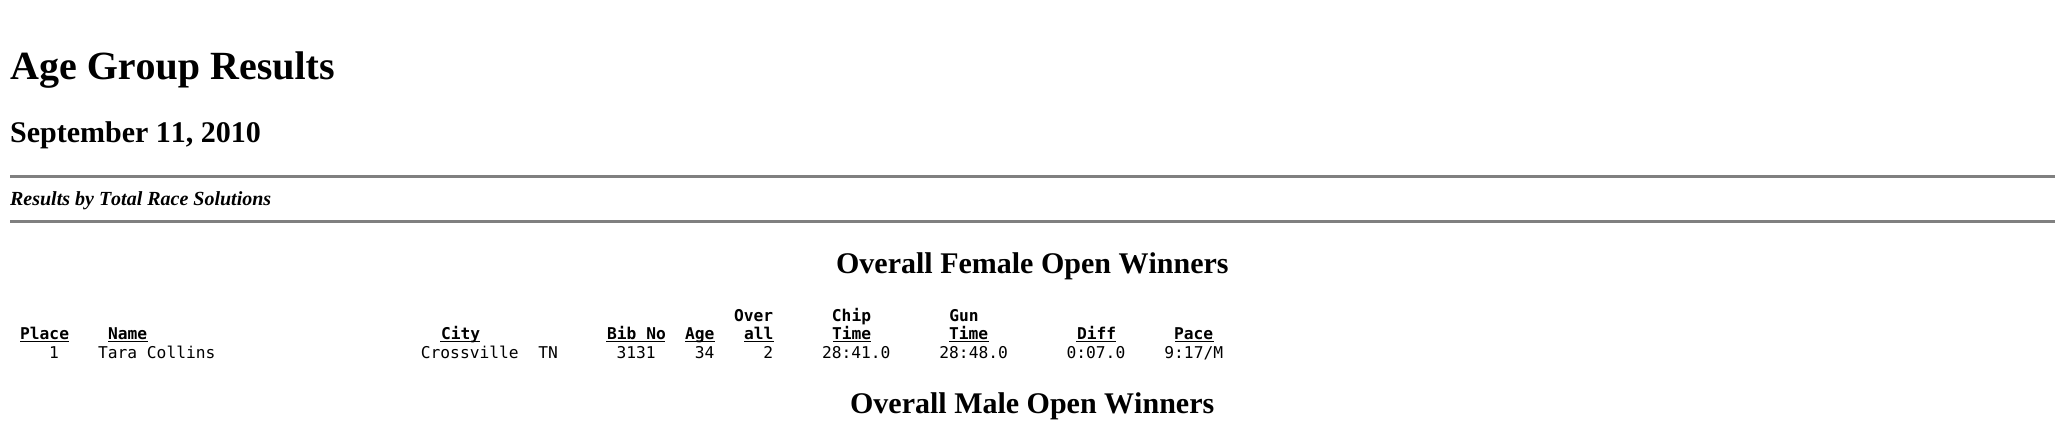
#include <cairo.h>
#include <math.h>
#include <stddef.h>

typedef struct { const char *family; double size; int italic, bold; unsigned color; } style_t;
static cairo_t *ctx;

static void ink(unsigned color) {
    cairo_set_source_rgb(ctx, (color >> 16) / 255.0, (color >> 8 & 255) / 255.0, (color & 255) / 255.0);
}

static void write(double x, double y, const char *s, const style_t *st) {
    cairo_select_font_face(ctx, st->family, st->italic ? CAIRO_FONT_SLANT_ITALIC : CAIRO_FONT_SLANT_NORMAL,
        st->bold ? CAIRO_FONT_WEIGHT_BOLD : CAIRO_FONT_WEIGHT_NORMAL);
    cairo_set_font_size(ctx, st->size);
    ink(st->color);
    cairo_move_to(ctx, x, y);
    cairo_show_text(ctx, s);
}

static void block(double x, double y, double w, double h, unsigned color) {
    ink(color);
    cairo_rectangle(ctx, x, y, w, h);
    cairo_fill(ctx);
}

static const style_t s1 = {"Liberation Serif", 40, 0, 1, 0x000000};
static const style_t s2 = {"Liberation Serif", 30, 0, 1, 0x000000};
static const style_t s3 = {"Liberation Serif", 20, 1, 1, 0x000000};
static const style_t s4 = {"DejaVu Sans Mono", 16.25, 0, 1, 0x000000};
static const style_t s5 = {"DejaVu Sans Mono", 16.25, 0, 0, 0x000000};

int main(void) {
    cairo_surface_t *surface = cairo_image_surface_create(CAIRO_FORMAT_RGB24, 2065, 423);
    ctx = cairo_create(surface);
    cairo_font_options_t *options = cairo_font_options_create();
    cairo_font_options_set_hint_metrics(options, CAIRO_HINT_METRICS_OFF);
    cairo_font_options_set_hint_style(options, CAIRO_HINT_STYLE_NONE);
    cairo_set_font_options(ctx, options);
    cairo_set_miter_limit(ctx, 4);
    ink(0xffffff);
    cairo_paint(ctx);
    write(10, 79, "Age Group Results", &s1);
    write(10, 142, "September 11, 2010", &s2);
    block(10, 175, 2045, 3, 0x808080);
    write(10, 205, "Results by Total Race Solutions", &s3);
    block(10, 220, 2045, 3, 0x808080);
    write(836, 273, "Overall Female Open Winners", &s2);
    write(734, 321, "Over      Chip        Gun", &s4);
    write(20, 339, "Place", &s4);
    block(20, 341, 49, 1, 0x000000);
    write(108, 339, "Name", &s4);
    block(108, 341, 40, 1, 0x000000);
    block(440, 341, 40, 1, 0x000000);
    write(441, 339, "City", &s4);
    write(607, 339, "Bib No", &s4);
    block(606, 341, 59, 1, 0x000000);
    block(685, 341, 30, 1, 0x000000);
    write(685, 339, "Age", &s4);
    write(744, 339, "all", &s4);
    block(744, 341, 30, 1, 0x000000);
    write(832, 339, "Time", &s4);
    block(833, 341, 38, 1, 0x000000);
    write(949, 339, "Time", &s4);
    block(949, 341, 40, 1, 0x000000);
    write(1077, 339, "Diff", &s4);
    block(1076, 341, 40, 1, 0x000000);
    write(1174, 339, "Pace", &s4);
    block(1175, 341, 39, 1, 0x000000);
    write(49, 358, "1    Tara Collins                     Crossville  TN      3131    34     2     28:41.0     28:48.0      0:07.0    9:17/M", &s5);
    write(850, 413, "Overall Male Open Winners", &s2);
    cairo_surface_write_to_png(surface, "screenshot.png");
    cairo_font_options_destroy(options);
    cairo_destroy(ctx);
    cairo_surface_destroy(surface);
    return 0;
}
